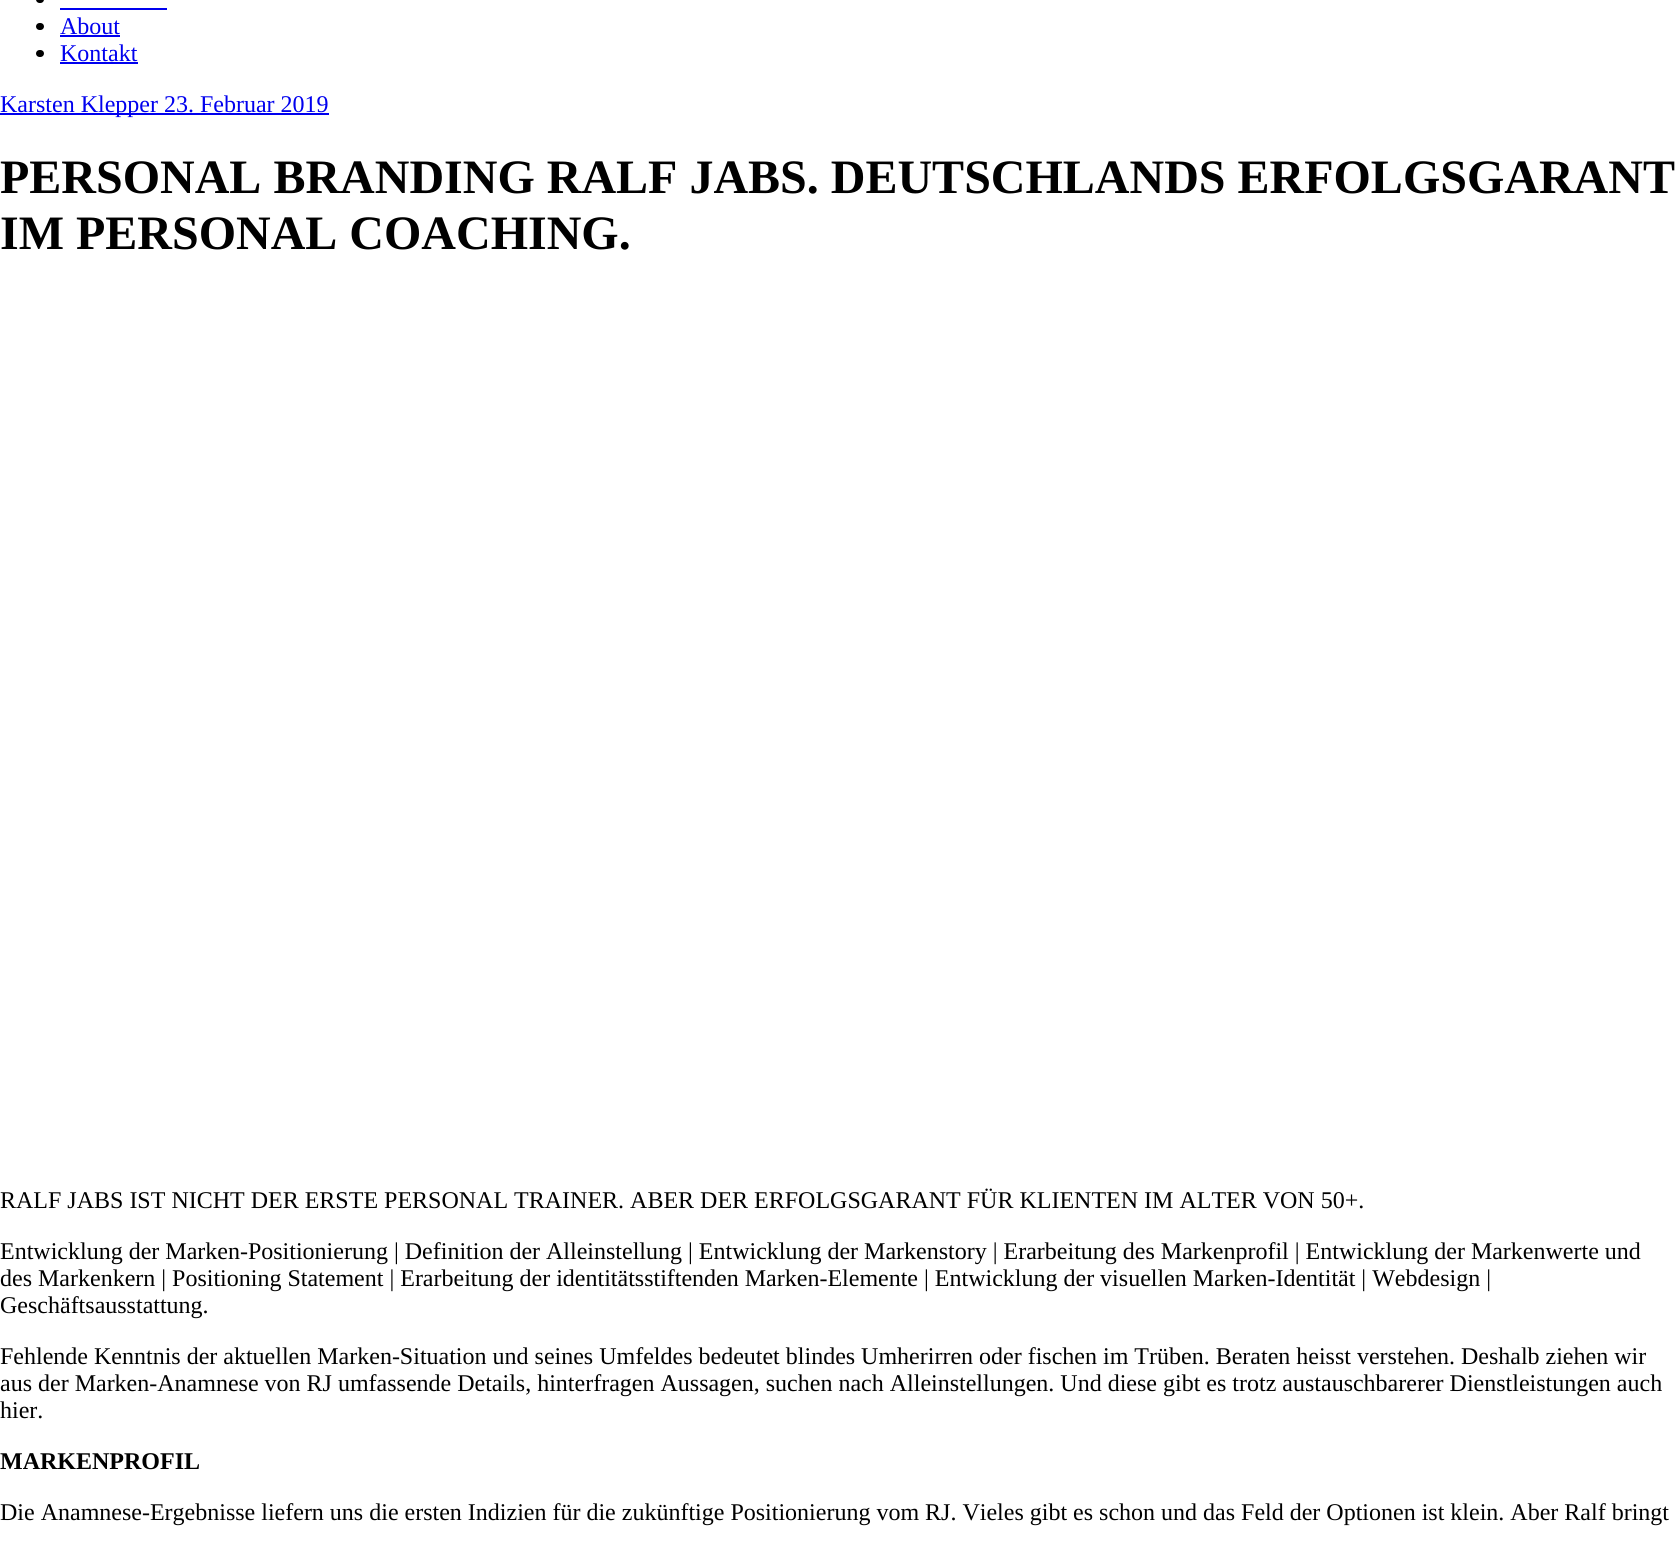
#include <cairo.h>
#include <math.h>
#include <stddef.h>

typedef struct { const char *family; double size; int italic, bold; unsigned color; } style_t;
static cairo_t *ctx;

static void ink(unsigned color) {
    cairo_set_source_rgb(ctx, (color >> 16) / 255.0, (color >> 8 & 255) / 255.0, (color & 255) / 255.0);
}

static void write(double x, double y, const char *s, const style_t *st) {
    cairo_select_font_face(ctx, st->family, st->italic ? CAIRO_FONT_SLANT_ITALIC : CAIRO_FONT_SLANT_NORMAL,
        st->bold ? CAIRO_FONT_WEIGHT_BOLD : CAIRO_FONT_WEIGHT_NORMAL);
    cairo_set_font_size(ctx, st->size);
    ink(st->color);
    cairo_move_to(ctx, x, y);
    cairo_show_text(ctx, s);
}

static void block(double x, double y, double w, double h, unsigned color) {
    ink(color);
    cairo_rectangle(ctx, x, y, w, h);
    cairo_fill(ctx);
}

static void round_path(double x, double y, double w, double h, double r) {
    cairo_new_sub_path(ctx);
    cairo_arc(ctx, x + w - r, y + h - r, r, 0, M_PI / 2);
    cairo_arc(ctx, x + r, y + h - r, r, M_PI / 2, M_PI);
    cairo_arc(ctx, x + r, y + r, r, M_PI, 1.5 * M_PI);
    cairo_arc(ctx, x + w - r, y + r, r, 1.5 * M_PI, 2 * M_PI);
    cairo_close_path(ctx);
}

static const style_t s1 = {"Liberation Serif", 24, 0, 0, 0x0000ee};
static const style_t s2 = {"Liberation Serif", 48, 0, 1, 0x000000};
static const style_t s3 = {"Liberation Serif", 24, 0, 0, 0x000000};
static const style_t s4 = {"Liberation Serif", 24, 0, 1, 0x000000};

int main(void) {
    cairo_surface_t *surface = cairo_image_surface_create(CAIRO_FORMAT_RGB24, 1675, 1542);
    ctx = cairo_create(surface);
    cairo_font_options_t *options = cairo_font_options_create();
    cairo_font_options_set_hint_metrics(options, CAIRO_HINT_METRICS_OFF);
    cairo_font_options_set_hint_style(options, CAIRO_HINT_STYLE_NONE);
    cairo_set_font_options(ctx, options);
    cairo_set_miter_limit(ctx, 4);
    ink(0xffffff);
    cairo_paint(ctx);
    ink(0x000000);
    round_path(36, -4, 8, 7, 3.5);
    cairo_fill(ctx);
    block(60, 8, 107, 2, 0x0000ee);
    ink(0x000000);
    round_path(36, 23, 8, 7, 3.5);
    cairo_fill(ctx);
    write(60, 34, "About", &s1);
    block(60, 35, 60, 2, 0x0000ee);
    ink(0x000000);
    round_path(36, 50, 8, 7, 3.5);
    cairo_fill(ctx);
    write(60, 61, "Kontakt", &s1);
    block(60, 62, 78, 2, 0x0000ee);
    block(0, 113, 329, 2, 0x0000ee);
    write(0, 112, "Karsten Klepper 23. Februar 2019", &s1);
    write(0, 193, "PERSONAL BRANDING RALF JABS. DEUTSCHLANDS ERFOLGSGARANT", &s2);
    write(0, 249, "IM PERSONAL COACHING.", &s2);
    write(0, 1208, "RALF JABS IST NICHT DER ERSTE PERSONAL TRAINER. ABER DER ERFOLGSGARANT FÜR KLIENTEN IM ALTER VON 50+.", &s3);
    write(0, 1259, "Entwicklung der Marken-Positionierung | Definition der Alleinstellung | Entwicklung der Markenstory | Erarbeitung des Markenprofil | Entwicklung der Markenwerte und", &s3);
    write(0, 1286, "des Markenkern | Positioning Statement | Erarbeitung der identitätsstiftenden Marken-Elemente | Entwicklung der visuellen Marken-Identität | Webdesign |", &s3);
    write(0, 1313, "Geschäftsausstattung.", &s3);
    write(0, 1364, "Fehlende Kenntnis der aktuellen Marken-Situation und seines Umfeldes bedeutet blindes Umherirren oder fischen im Trüben. Beraten heisst verstehen. Deshalb ziehen wir", &s3);
    write(0, 1391, "aus der Marken-Anamnese von RJ umfassende Details, hinterfragen Aussagen, suchen nach Alleinstellungen. Und diese gibt es trotz austauschbarerer Dienstleistungen auch", &s3);
    write(0, 1418, "hier.", &s3);
    write(0, 1469, "MARKENPROFIL", &s4);
    write(0, 1520, "Die Anamnese-Ergebnisse liefern uns die ersten Indizien für die zukünftige Positionierung vom RJ. Vieles gibt es schon und das Feld der Optionen ist klein. Aber Ralf bringt", &s3);
    cairo_surface_write_to_png(surface, "screenshot.png");
    cairo_font_options_destroy(options);
    cairo_destroy(ctx);
    cairo_surface_destroy(surface);
    return 0;
}
